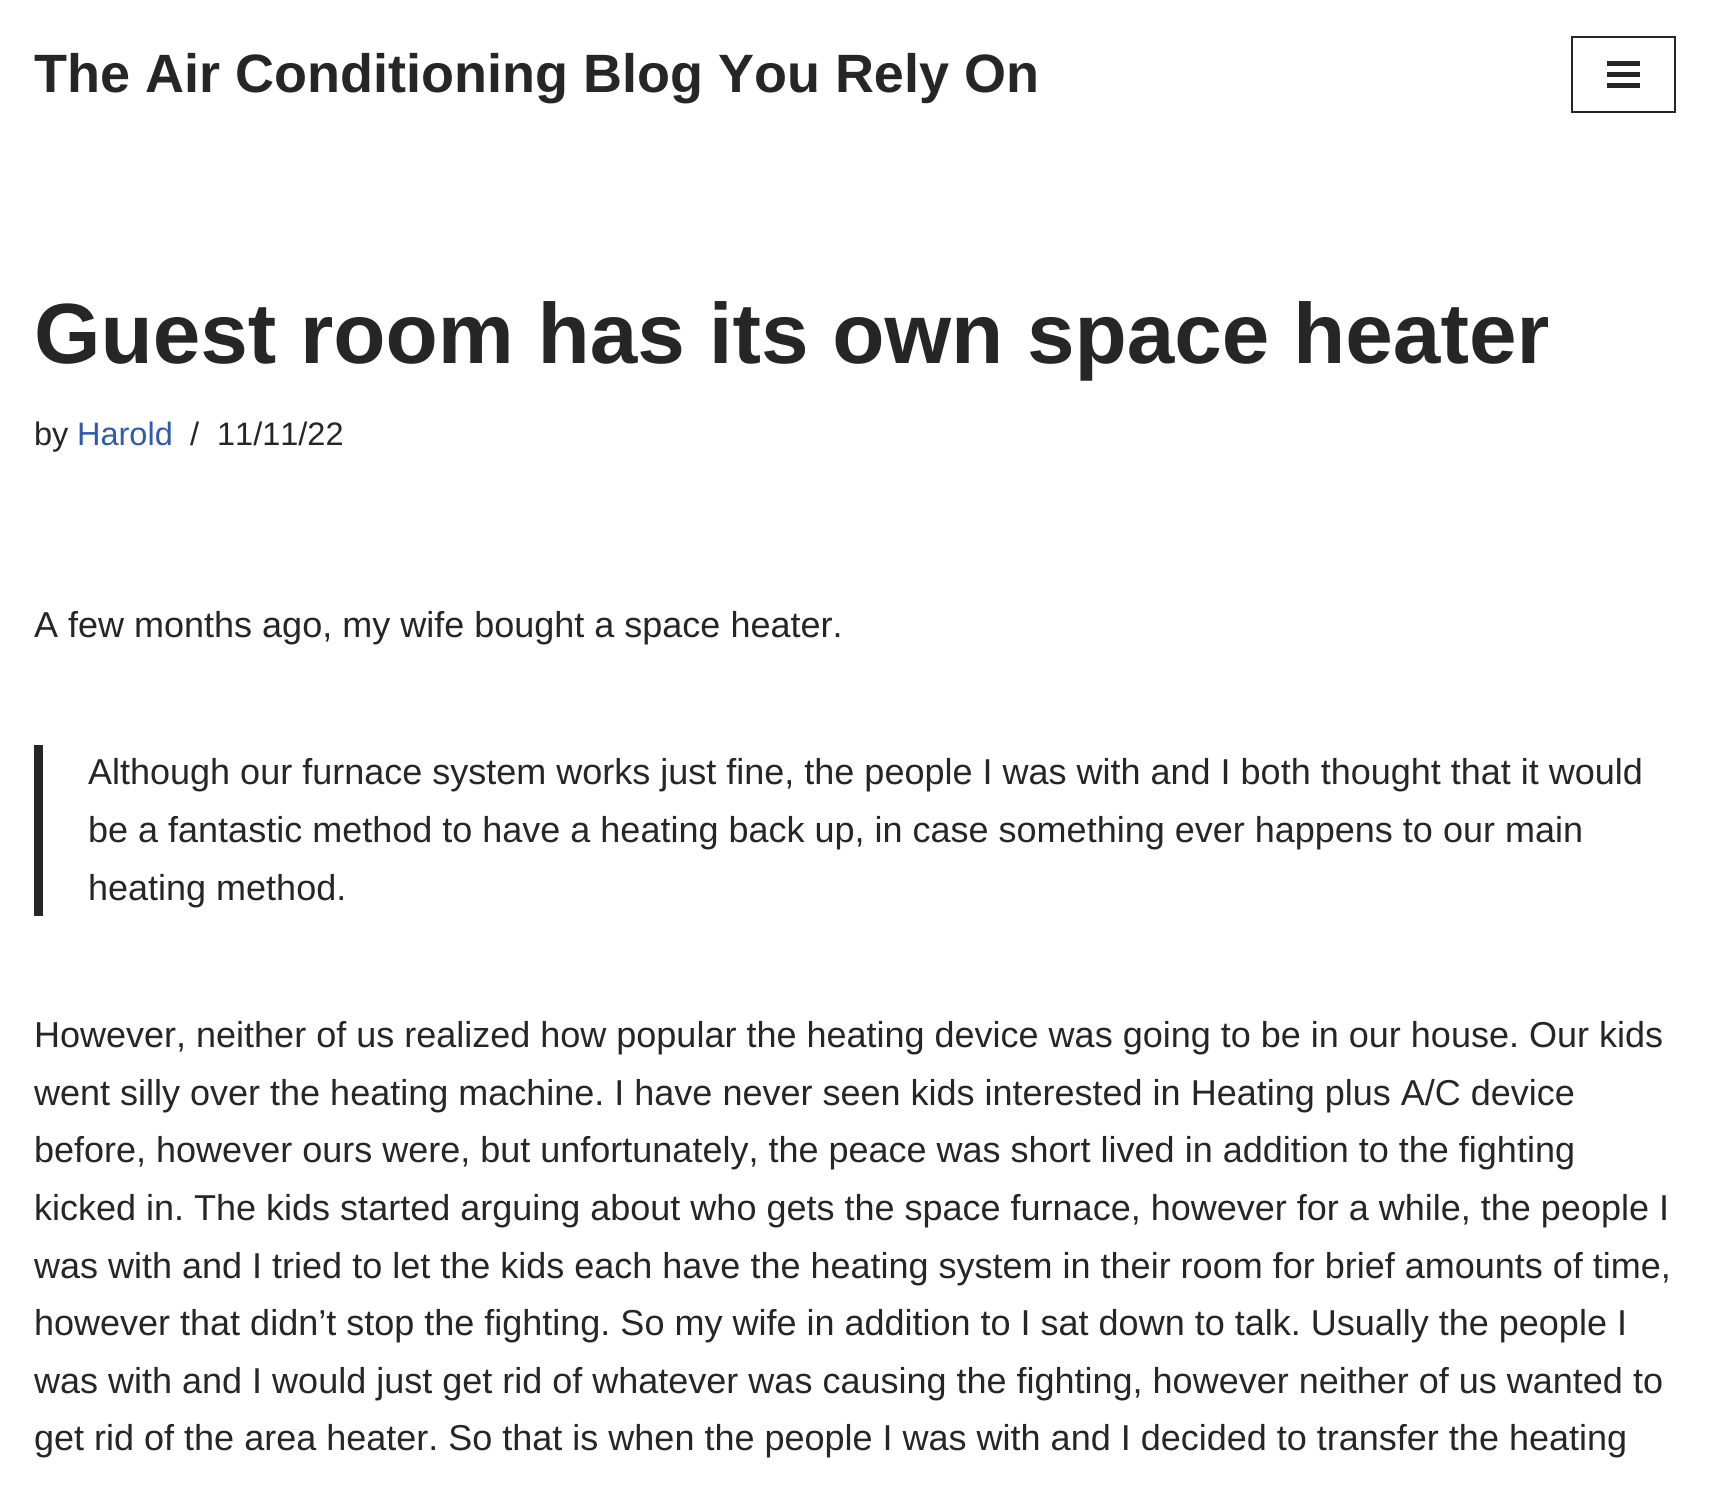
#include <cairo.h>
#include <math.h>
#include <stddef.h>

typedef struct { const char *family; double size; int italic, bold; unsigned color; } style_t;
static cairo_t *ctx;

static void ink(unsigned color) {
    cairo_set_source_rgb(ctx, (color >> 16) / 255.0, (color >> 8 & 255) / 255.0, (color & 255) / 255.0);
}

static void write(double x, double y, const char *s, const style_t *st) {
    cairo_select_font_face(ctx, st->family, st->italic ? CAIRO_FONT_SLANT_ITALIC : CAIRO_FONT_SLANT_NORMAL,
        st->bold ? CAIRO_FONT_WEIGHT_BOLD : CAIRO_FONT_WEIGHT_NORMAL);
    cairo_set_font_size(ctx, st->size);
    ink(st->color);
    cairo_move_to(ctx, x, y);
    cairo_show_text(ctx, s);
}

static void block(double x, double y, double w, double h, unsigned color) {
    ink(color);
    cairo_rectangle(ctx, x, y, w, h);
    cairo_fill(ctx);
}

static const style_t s1 = {"Liberation Sans", 54, 0, 1, 0x272626};
static const style_t s2 = {"Liberation Sans", 85.5, 0, 1, 0x272626};
static const style_t s3 = {"Liberation Sans", 32.5, 0, 0, 0x272626};
static const style_t s4 = {"Liberation Sans", 32.5, 0, 0, 0x2f5aae};
static const style_t s5 = {"Liberation Sans", 36, 0, 0, 0x272626};

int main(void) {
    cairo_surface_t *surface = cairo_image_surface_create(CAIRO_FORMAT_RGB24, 1710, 1497);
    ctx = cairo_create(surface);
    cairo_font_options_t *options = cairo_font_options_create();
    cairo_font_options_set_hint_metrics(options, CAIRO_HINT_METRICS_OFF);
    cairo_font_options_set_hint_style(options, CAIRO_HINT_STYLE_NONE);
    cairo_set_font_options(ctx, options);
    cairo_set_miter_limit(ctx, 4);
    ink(0xffffff);
    cairo_paint(ctx);
    write(34, 92, "The Air Conditioning Blog You Rely On", &s1);
    cairo_rectangle(ctx, 1572, 37, 103, 75);
    cairo_stroke(ctx);
    block(1607, 61, 33, 5, 0x272626);
    block(1607, 72, 33, 5, 0x272626);
    block(1607, 83, 33, 5, 0x272626);
    write(34, 363, "Guest room has its own space heater", &s2);
    write(34, 445, "by", &s3);
    write(77, 445, "Harold", &s4);
    write(190, 445, "/", &s3);
    write(217, 445, "11/11/22", &s3);
    write(34, 637, "A few months ago, my wife bought a space heater.", &s5);
    block(34, 745, 9, 171, 0x272626);
    write(88, 784, "Although our furnace system works just fine, the people I was with and I both thought that it would", &s5);
    write(88, 842, "be a fantastic method to have a heating back up, in case something ever happens to our main", &s5);
    write(88, 900, "heating method.", &s5);
    write(34, 1047, "However, neither of us realized how popular the heating device was going to be in our house. Our kids", &s5);
    write(34, 1105, "went silly over the heating machine. I have never seen kids interested in Heating plus A/C device", &s5);
    write(34, 1162, "before, however ours were, but unfortunately, the peace was short lived in addition to the fighting", &s5);
    write(34, 1220, "kicked in. The kids started arguing about who gets the space furnace, however for a while, the people I", &s5);
    write(34, 1278, "was with and I tried to let the kids each have the heating system in their room for brief amounts of time,", &s5);
    write(34, 1335, "however that didn’t stop the fighting. So my wife in addition to I sat down to talk. Usually the people I", &s5);
    write(34, 1393, "was with and I would just get rid of whatever was causing the fighting, however neither of us wanted to", &s5);
    write(34, 1450, "get rid of the area heater. So that is when the people I was with and I decided to transfer the heating", &s5);
    cairo_surface_write_to_png(surface, "screenshot.png");
    cairo_font_options_destroy(options);
    cairo_destroy(ctx);
    cairo_surface_destroy(surface);
    return 0;
}
